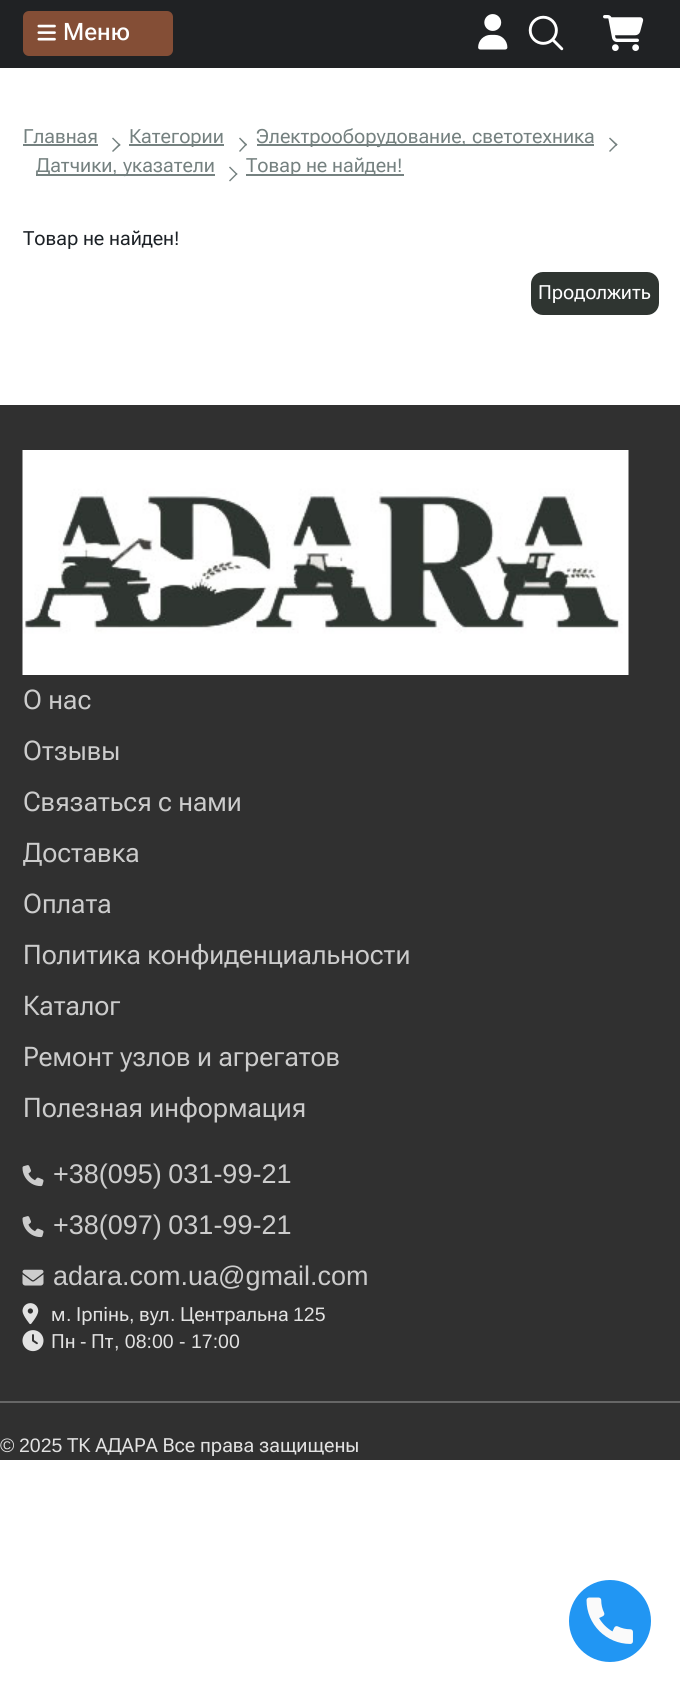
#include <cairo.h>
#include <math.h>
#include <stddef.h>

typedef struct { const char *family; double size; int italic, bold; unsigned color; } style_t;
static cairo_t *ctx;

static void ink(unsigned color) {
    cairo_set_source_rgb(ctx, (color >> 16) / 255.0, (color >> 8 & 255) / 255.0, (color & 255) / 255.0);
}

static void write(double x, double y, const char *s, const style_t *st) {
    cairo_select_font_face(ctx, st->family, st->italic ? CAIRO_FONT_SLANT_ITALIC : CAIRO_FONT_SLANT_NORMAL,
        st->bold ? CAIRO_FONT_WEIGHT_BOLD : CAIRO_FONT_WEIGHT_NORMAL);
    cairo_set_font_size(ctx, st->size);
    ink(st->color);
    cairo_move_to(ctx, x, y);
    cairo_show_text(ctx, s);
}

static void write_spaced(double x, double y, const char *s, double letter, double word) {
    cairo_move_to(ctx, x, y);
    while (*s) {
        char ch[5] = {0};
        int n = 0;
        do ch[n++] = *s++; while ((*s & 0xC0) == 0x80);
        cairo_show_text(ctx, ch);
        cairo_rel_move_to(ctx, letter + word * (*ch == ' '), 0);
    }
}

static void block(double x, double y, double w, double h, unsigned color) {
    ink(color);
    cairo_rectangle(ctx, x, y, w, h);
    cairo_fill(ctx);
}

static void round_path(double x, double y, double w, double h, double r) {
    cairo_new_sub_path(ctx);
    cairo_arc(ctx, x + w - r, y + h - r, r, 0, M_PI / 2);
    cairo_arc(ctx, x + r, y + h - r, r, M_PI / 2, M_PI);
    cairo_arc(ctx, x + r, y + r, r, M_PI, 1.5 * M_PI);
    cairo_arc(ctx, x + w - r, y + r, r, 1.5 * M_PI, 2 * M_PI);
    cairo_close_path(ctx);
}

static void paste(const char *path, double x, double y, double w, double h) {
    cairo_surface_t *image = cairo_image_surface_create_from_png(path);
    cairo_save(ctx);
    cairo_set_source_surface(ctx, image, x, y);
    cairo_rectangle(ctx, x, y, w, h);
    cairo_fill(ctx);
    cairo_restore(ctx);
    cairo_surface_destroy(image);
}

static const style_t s1 = {"Roboto Flex Medium", 24, 0, 0, 0xffffff};
static const style_t s2 = {"Roboto Flex", 19.5, 0, 0, 0x758180};
static const style_t s3 = {"Liberation Sans", 19.5, 0, 0, 0x758180};
static const style_t s4 = {"Roboto Flex", 19.5, 0, 0, 0x1c2126};
static const style_t s5 = {"Liberation Sans", 19.5, 0, 0, 0x1c2126};
static const style_t s6 = {"Roboto Flex", 19.5, 0, 0, 0xffffff};
static const style_t s7 = {"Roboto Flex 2", 27, 0, 0, 0xcccccc};
static const style_t s8 = {"Liberation Sans", 27, 0, 0, 0xcccccc};
static const style_t s9 = {"Roboto Flex", 19.5, 0, 0, 0xe2e2e2};
static const style_t s10 = {"Liberation Sans", 19.5, 0, 0, 0xe2e2e2};
static const style_t s11 = {"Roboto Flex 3", 19.5, 0, 0, 0xe2e2e2};

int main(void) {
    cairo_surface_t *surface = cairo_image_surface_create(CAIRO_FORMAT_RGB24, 680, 1692);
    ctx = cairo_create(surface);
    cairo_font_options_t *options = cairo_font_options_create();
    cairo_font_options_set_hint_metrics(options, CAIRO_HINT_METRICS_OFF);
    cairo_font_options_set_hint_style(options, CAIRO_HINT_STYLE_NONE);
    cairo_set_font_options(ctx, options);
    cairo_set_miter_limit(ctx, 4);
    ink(0xffffff);
    cairo_paint(ctx);
    block(0, 0, 680, 68, 0x202224);
    ink(0x844e36);
    round_path(23, 11, 150, 45, 6);
    cairo_fill(ctx);
    paste("pic1.png", 37, 24, 19, 17);
    write(63, 40, "Меню", &s1);
    paste("pic2.png", 478, 14, 30, 36);
    paste("pic3.png", 528, 15, 36, 36);
    paste("pic4.png", 603, 15, 41, 36);
    write(23, 143, "Главная", &s2);
    block(23, 144, 75, 2, 0x758180);
    cairo_new_path(ctx);
    cairo_move_to(ctx, 112, 138.5);
    cairo_line_to(ctx, 113, 137.5);
    cairo_line_to(ctx, 120.5, 145);
    cairo_line_to(ctx, 119.5, 146);
    cairo_close_path(ctx);
    cairo_fill(ctx);
    cairo_new_path(ctx);
    cairo_move_to(ctx, 112, 151);
    cairo_line_to(ctx, 119.5, 143.5);
    cairo_line_to(ctx, 120.5, 145);
    cairo_line_to(ctx, 113, 152);
    cairo_close_path(ctx);
    cairo_fill(ctx);
    block(129, 144, 95, 2, 0x758180);
    write(129, 143, "Категории", &s2);
    cairo_new_path(ctx);
    cairo_move_to(ctx, 239, 138.5);
    cairo_line_to(ctx, 240, 137.5);
    cairo_line_to(ctx, 247, 144.5);
    cairo_line_to(ctx, 246, 146);
    cairo_close_path(ctx);
    cairo_fill(ctx);
    cairo_new_path(ctx);
    cairo_move_to(ctx, 239, 151);
    cairo_line_to(ctx, 246, 143.5);
    cairo_line_to(ctx, 247, 144.5);
    cairo_line_to(ctx, 240, 152);
    cairo_close_path(ctx);
    cairo_fill(ctx);
    block(257, 144, 337, 2, 0x758180);
    write(256, 143, "Электрооборудование", &s2);
    write(461, 143, ",", &s3);
    write(472, 143, "светотехника", &s2);
    cairo_new_path(ctx);
    cairo_move_to(ctx, 609, 138.5);
    cairo_line_to(ctx, 610, 137.5);
    cairo_line_to(ctx, 617.5, 144.5);
    cairo_line_to(ctx, 616.5, 146);
    cairo_close_path(ctx);
    cairo_fill(ctx);
    cairo_new_path(ctx);
    cairo_move_to(ctx, 609, 151);
    cairo_line_to(ctx, 616.5, 143.5);
    cairo_line_to(ctx, 617.5, 144.5);
    cairo_line_to(ctx, 610, 152);
    cairo_close_path(ctx);
    cairo_fill(ctx);
    block(36, 174, 179, 2, 0x758180);
    write(36, 172, "Датчики", &s2);
    write(112, 172, ",", &s3);
    write(123, 172, "указатели", &s2);
    cairo_new_path(ctx);
    cairo_move_to(ctx, 229, 167.5);
    cairo_line_to(ctx, 230, 166.5);
    cairo_line_to(ctx, 237.5, 174);
    cairo_line_to(ctx, 236.5, 175);
    cairo_close_path(ctx);
    cairo_fill(ctx);
    cairo_new_path(ctx);
    cairo_move_to(ctx, 229, 180.5);
    cairo_line_to(ctx, 236.5, 173);
    cairo_line_to(ctx, 237.5, 174);
    cairo_line_to(ctx, 230, 181.5);
    cairo_close_path(ctx);
    cairo_fill(ctx);
    block(246, 174, 158, 2, 0x758180);
    write(246, 172, "Товар не найден", &s2);
    write(397, 172, "!", &s3);
    write(23, 245, "Товар не найден", &s4);
    write(174, 245, "!", &s5);
    ink(0x2f3531);
    round_path(531, 272, 128, 43, 12);
    cairo_fill(ctx);
    write(538, 299, "Продолжить", &s6);
    block(0, 405, 680, 1055, 0x303030);
    paste("pic5.png", 22, 450, 607, 225);
    write(23, 709, "О нас", &s7);
    write(23, 760, "Отзывы", &s7);
    write(23, 811, "Связаться с нами", &s7);
    write(23, 862, "Доставка", &s7);
    write(23, 913, "Оплата", &s7);
    write(23, 964, "Политика конфиденциальности", &s7);
    write(23, 1015, "Каталог", &s7);
    write(23, 1066, "Ремонт узлов и агрегатов", &s7);
    write(23, 1117, "Полезная информация", &s7);
    paste("pic6.png", 22, 1165, 22, 22);
    cairo_select_font_face(ctx, "Liberation Sans", CAIRO_FONT_SLANT_NORMAL, CAIRO_FONT_WEIGHT_NORMAL);
    write_spaced(53, 1183, "+38(095) 031-99-21", 0, -1);
    paste("pic6.png", 22, 1216, 22, 22);
    write_spaced(53, 1234, "+38(097) 031-99-21", 0, -1);
    paste("pic7.png", 22, 1269, 22, 17);
    write(53, 1285, "adara.com.ua@gmail.com", &s8);
    paste("pic8.png", 22, 1303, 17, 22);
    write(51, 1321, "м", &s9);
    write(66, 1321, ".", &s10);
    write(76, 1321, "Ірпінь", &s9);
    write(129, 1321, ",", &s10);
    write(139, 1321, "вул", &s9);
    write(170, 1321, ".", &s10);
    write(180, 1321, "Центральна", &s9);
    write(293, 1321, "125", &s10);
    paste("pic9.png", 22, 1330, 22, 22);
    write(51, 1348, "Пн", &s11);
    write(80, 1348, "-", &s10);
    write(91, 1348, "Пт", &s11);
    write(114, 1348, ", 08:00 - 17:00", &s10);
    block(0, 1401, 680, 2, 0x666666);
    write(0, 1452, "©", &s10);
    write(19, 1452, "2025", &s10);
    write(67, 1452, "ТК АДАРА Все права защищены", &s9);
    paste("pic10.png", 569, 1580, 82, 82);
    cairo_surface_write_to_png(surface, "screenshot.png");
    cairo_font_options_destroy(options);
    cairo_destroy(ctx);
    cairo_surface_destroy(surface);
    return 0;
}
